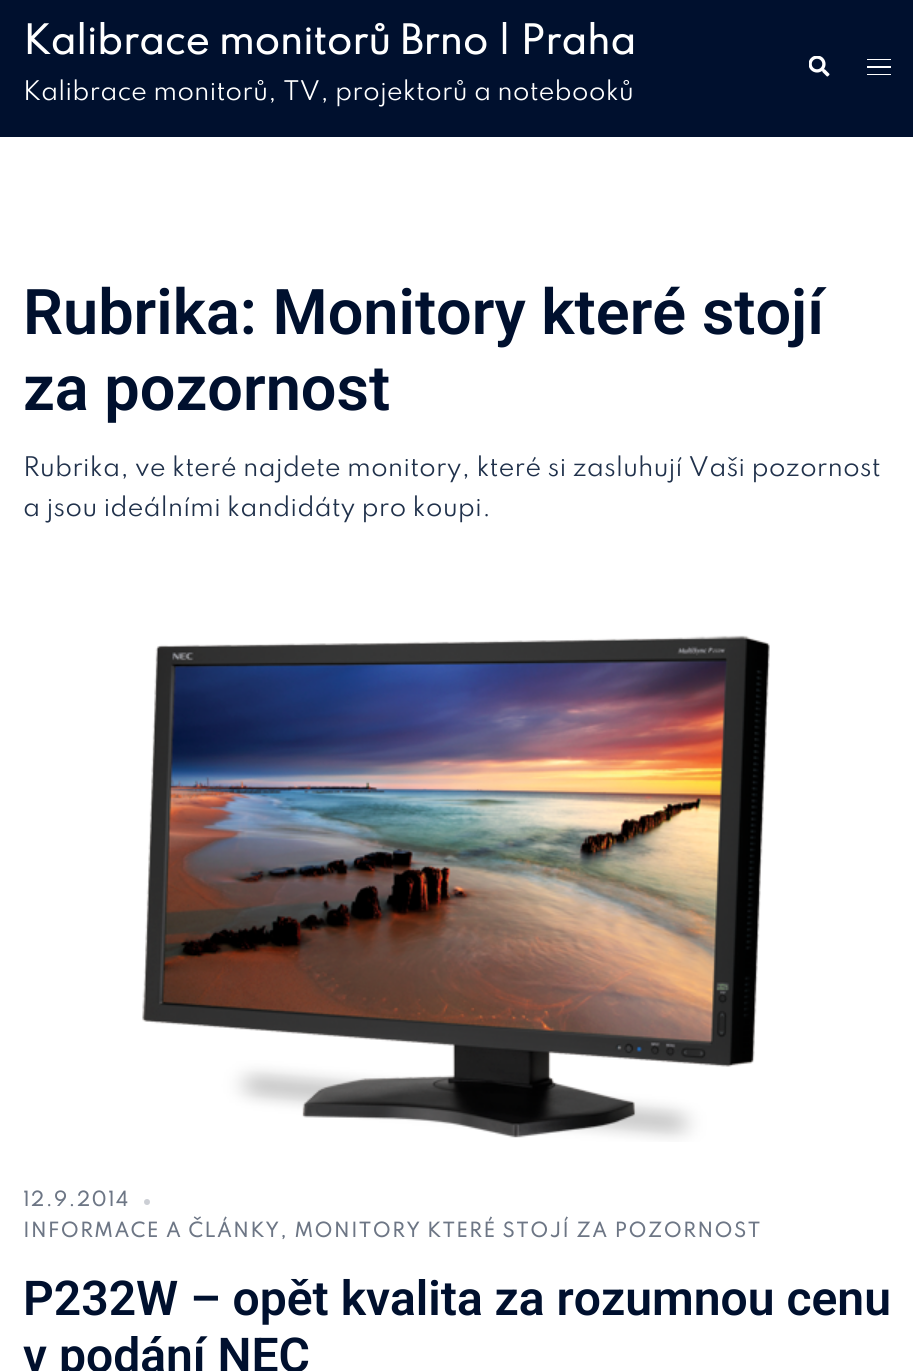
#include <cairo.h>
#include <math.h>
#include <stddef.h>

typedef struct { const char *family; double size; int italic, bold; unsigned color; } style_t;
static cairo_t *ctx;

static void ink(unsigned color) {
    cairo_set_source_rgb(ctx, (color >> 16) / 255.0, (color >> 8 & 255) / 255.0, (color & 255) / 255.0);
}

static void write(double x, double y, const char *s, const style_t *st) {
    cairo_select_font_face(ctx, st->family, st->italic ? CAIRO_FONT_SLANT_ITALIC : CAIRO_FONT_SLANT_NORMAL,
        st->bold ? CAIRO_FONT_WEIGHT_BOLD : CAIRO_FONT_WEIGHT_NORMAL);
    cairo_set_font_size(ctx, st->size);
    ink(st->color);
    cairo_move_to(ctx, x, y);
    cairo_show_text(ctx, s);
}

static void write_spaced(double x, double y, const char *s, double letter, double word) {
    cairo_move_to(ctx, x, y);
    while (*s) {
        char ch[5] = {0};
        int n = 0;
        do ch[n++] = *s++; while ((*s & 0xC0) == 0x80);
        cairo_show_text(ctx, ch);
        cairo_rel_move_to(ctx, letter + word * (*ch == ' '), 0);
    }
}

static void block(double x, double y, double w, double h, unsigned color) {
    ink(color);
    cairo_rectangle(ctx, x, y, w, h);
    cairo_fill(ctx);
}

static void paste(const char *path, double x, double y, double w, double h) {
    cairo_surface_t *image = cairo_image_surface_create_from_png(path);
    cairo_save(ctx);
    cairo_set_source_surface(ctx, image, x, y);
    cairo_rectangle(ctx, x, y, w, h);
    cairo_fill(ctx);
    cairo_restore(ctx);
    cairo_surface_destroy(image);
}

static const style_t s1 = {"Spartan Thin", 36, 0, 1, 0xffffff};
static const style_t s2 = {"Spartan Thin Thin", 24, 0, 0, 0xffffff};
static const style_t s3 = {"Roboto SemiBold", 63, 0, 0, 0x00102e};
static const style_t s4 = {"Spartan Thin Thin", 24, 0, 0, 0x20314b};
static const style_t s5 = {"Roboto SemiBold", 48, 0, 0, 0x00102e};

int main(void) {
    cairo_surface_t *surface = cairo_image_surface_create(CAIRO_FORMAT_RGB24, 913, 1371);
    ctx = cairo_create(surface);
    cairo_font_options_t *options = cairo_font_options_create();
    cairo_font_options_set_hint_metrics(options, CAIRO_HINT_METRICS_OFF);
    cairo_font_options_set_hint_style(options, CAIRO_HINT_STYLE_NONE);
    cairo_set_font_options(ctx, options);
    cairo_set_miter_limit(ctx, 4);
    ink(0xffffff);
    cairo_paint(ctx);
    block(0, 0, 913, 137, 0x00102e);
    write(23, 54, "Kalibrace monitorů Brno | Praha", &s1);
    write(23, 100, "Kalibrace monitorů, TV, projektorů a notebooků", &s2);
    paste("pic1.png", 809, 56, 21, 21);
    block(867, 59, 24, 1, 0xffffff);
    block(867, 66, 24, 2, 0xffffff);
    block(867, 74, 24, 1, 0xffffff);
    write(23, 334, "Rubrika: Monitory které stojí", &s3);
    write(23, 410, "za pozornost", &s3);
    write(23, 476, "Rubrika, ve které najdete monitory, které si zasluhují Vaši pozornost", &s4);
    write(23, 516, "a jsou ideálními kandidáty pro koupi.", &s4);
    paste("pic2.png", 142, 635, 628, 507);
    cairo_select_font_face(ctx, "Spartan Thin", CAIRO_FONT_SLANT_NORMAL, CAIRO_FONT_WEIGHT_BOLD);
    cairo_set_font_size(ctx, 18);
    ink(0x6d7685);
    write_spaced(23, 1206, "12.9.2014", 1.5, 0);
    ink(0xcccfd5);
    cairo_new_path(ctx);
    cairo_arc(ctx, 147, 1202, 3, 0, 2 * M_PI);
    cairo_fill(ctx);
    ink(0x6d7685);
    write_spaced(23, 1237, "INFORMACE A ČLÁNKY, MONITORY KTERÉ STOJÍ ZA POZORNOST", 1.5, 0);
    write(23, 1315, "P232W – opět kvalita za rozumnou cenu", &s5);
    write(23, 1372, "v podání NEC", &s5);
    cairo_surface_write_to_png(surface, "screenshot.png");
    cairo_font_options_destroy(options);
    cairo_destroy(ctx);
    cairo_surface_destroy(surface);
    return 0;
}
